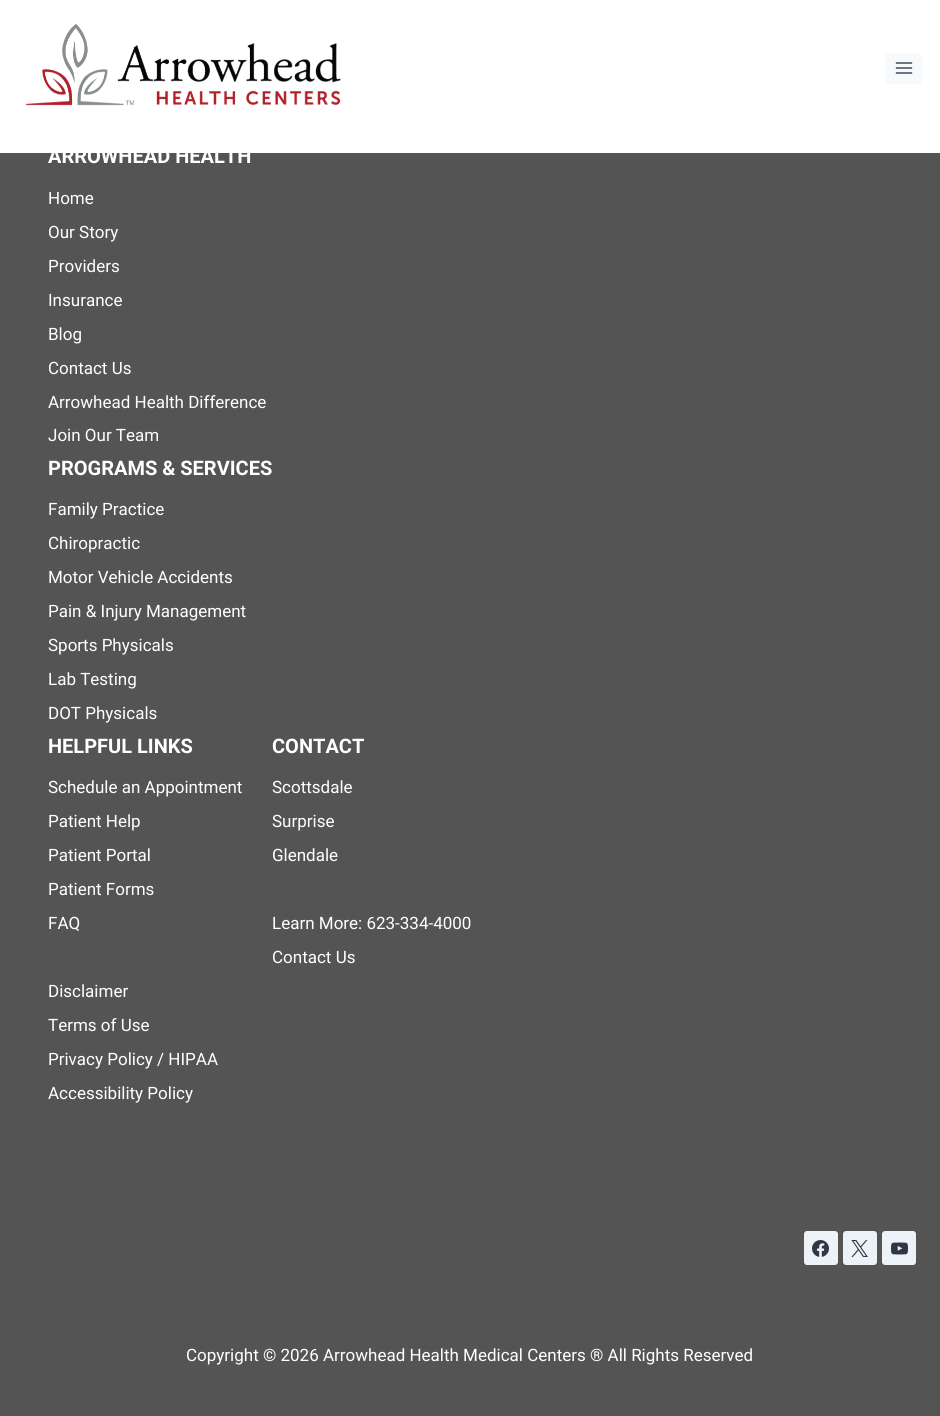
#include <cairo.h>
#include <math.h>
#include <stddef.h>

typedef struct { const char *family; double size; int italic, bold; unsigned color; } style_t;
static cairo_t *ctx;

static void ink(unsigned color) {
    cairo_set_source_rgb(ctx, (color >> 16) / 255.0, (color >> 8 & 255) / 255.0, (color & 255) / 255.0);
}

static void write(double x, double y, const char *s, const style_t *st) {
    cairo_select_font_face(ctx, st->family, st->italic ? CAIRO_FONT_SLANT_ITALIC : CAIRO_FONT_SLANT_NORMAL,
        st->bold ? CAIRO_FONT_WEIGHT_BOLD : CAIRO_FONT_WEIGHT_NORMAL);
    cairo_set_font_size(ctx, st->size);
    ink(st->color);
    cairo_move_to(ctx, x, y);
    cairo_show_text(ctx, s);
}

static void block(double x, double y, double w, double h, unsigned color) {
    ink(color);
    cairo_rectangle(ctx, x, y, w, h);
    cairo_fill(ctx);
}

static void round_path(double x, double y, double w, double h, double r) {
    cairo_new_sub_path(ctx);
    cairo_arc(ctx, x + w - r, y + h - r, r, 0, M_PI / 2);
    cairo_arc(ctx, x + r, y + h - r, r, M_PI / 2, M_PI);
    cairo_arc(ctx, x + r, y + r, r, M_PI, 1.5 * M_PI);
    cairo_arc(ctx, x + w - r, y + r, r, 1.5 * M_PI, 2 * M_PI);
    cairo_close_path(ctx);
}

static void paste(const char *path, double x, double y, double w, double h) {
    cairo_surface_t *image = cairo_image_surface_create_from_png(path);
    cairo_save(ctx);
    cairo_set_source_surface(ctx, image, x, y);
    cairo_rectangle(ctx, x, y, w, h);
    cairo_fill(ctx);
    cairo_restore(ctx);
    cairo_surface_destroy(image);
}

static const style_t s1 = {"Roboto", 20, 0, 1, 0xffffff};
static const style_t s2 = {"Roboto", 17, 0, 0, 0xffffff};

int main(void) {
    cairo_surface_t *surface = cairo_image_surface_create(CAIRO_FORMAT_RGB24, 940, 1416);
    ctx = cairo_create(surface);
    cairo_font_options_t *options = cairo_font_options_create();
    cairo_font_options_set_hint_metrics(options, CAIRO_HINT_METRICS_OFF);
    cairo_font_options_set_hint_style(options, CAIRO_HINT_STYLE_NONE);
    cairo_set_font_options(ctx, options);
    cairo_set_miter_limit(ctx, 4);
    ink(0x555454);
    cairo_paint(ctx);
    block(0, 0, 940, 153, 0xffffff);
    paste("pic1.png", 26, 23, 315, 83);
    ink(0xf7fafc);
    round_path(885, 53, 37, 31, 3);
    cairo_fill(ctx);
    paste("pic2.png", 895, 62, 18, 12);
    write(48, 163, "ARROWHEAD HEALTH", &s1);
    write(48, 204, "Home", &s2);
    write(48, 238, "Our Story", &s2);
    write(48, 272, "Providers", &s2);
    write(48, 306, "Insurance", &s2);
    write(48, 340, "Blog", &s2);
    write(48, 374, "Contact Us", &s2);
    write(48, 408, "Arrowhead Health Difference", &s2);
    write(48, 441, "Join Our Team", &s2);
    write(48, 475, "PROGRAMS & SERVICES", &s1);
    write(48, 515, "Family Practice", &s2);
    write(48, 549, "Chiropractic", &s2);
    write(48, 583, "Motor Vehicle Accidents", &s2);
    write(48, 617, "Pain & Injury Management", &s2);
    write(48, 651, "Sports Physicals", &s2);
    write(48, 685, "Lab Testing", &s2);
    write(48, 719, "DOT Physicals", &s2);
    write(48, 753, "HELPFUL LINKS", &s1);
    write(48, 793, "Schedule an Appointment", &s2);
    write(48, 827, "Patient Help", &s2);
    write(48, 861, "Patient Portal", &s2);
    write(48, 895, "Patient Forms", &s2);
    write(48, 929, "FAQ", &s2);
    write(48, 997, "Disclaimer", &s2);
    write(48, 1031, "Terms of Use", &s2);
    write(48, 1065, "Privacy Policy / HIPAA", &s2);
    write(48, 1099, "Accessibility Policy", &s2);
    write(272, 753, "CONTACT", &s1);
    write(272, 793, "Scottsdale", &s2);
    write(272, 827, "Surprise", &s2);
    write(272, 861, "Glendale", &s2);
    write(272, 929, "Learn More: 623-334-4000", &s2);
    write(272, 963, "Contact Us", &s2);
    ink(0xedf2f7);
    round_path(804, 1231, 34, 34, 3);
    cairo_fill(ctx);
    paste("pic3.png", 812, 1240, 17, 17);
    round_path(843, 1231, 34, 34, 3);
    cairo_fill(ctx);
    paste("pic4.png", 851, 1240, 17, 17);
    round_path(882, 1231, 34, 34, 3);
    cairo_fill(ctx);
    paste("pic5.png", 891, 1242, 17, 13);
    write(186, 1361, "Copyright © 2026 Arrowhead Health Medical Centers ® All Rights Reserved", &s2);
    cairo_surface_write_to_png(surface, "screenshot.png");
    cairo_font_options_destroy(options);
    cairo_destroy(ctx);
    cairo_surface_destroy(surface);
    return 0;
}
